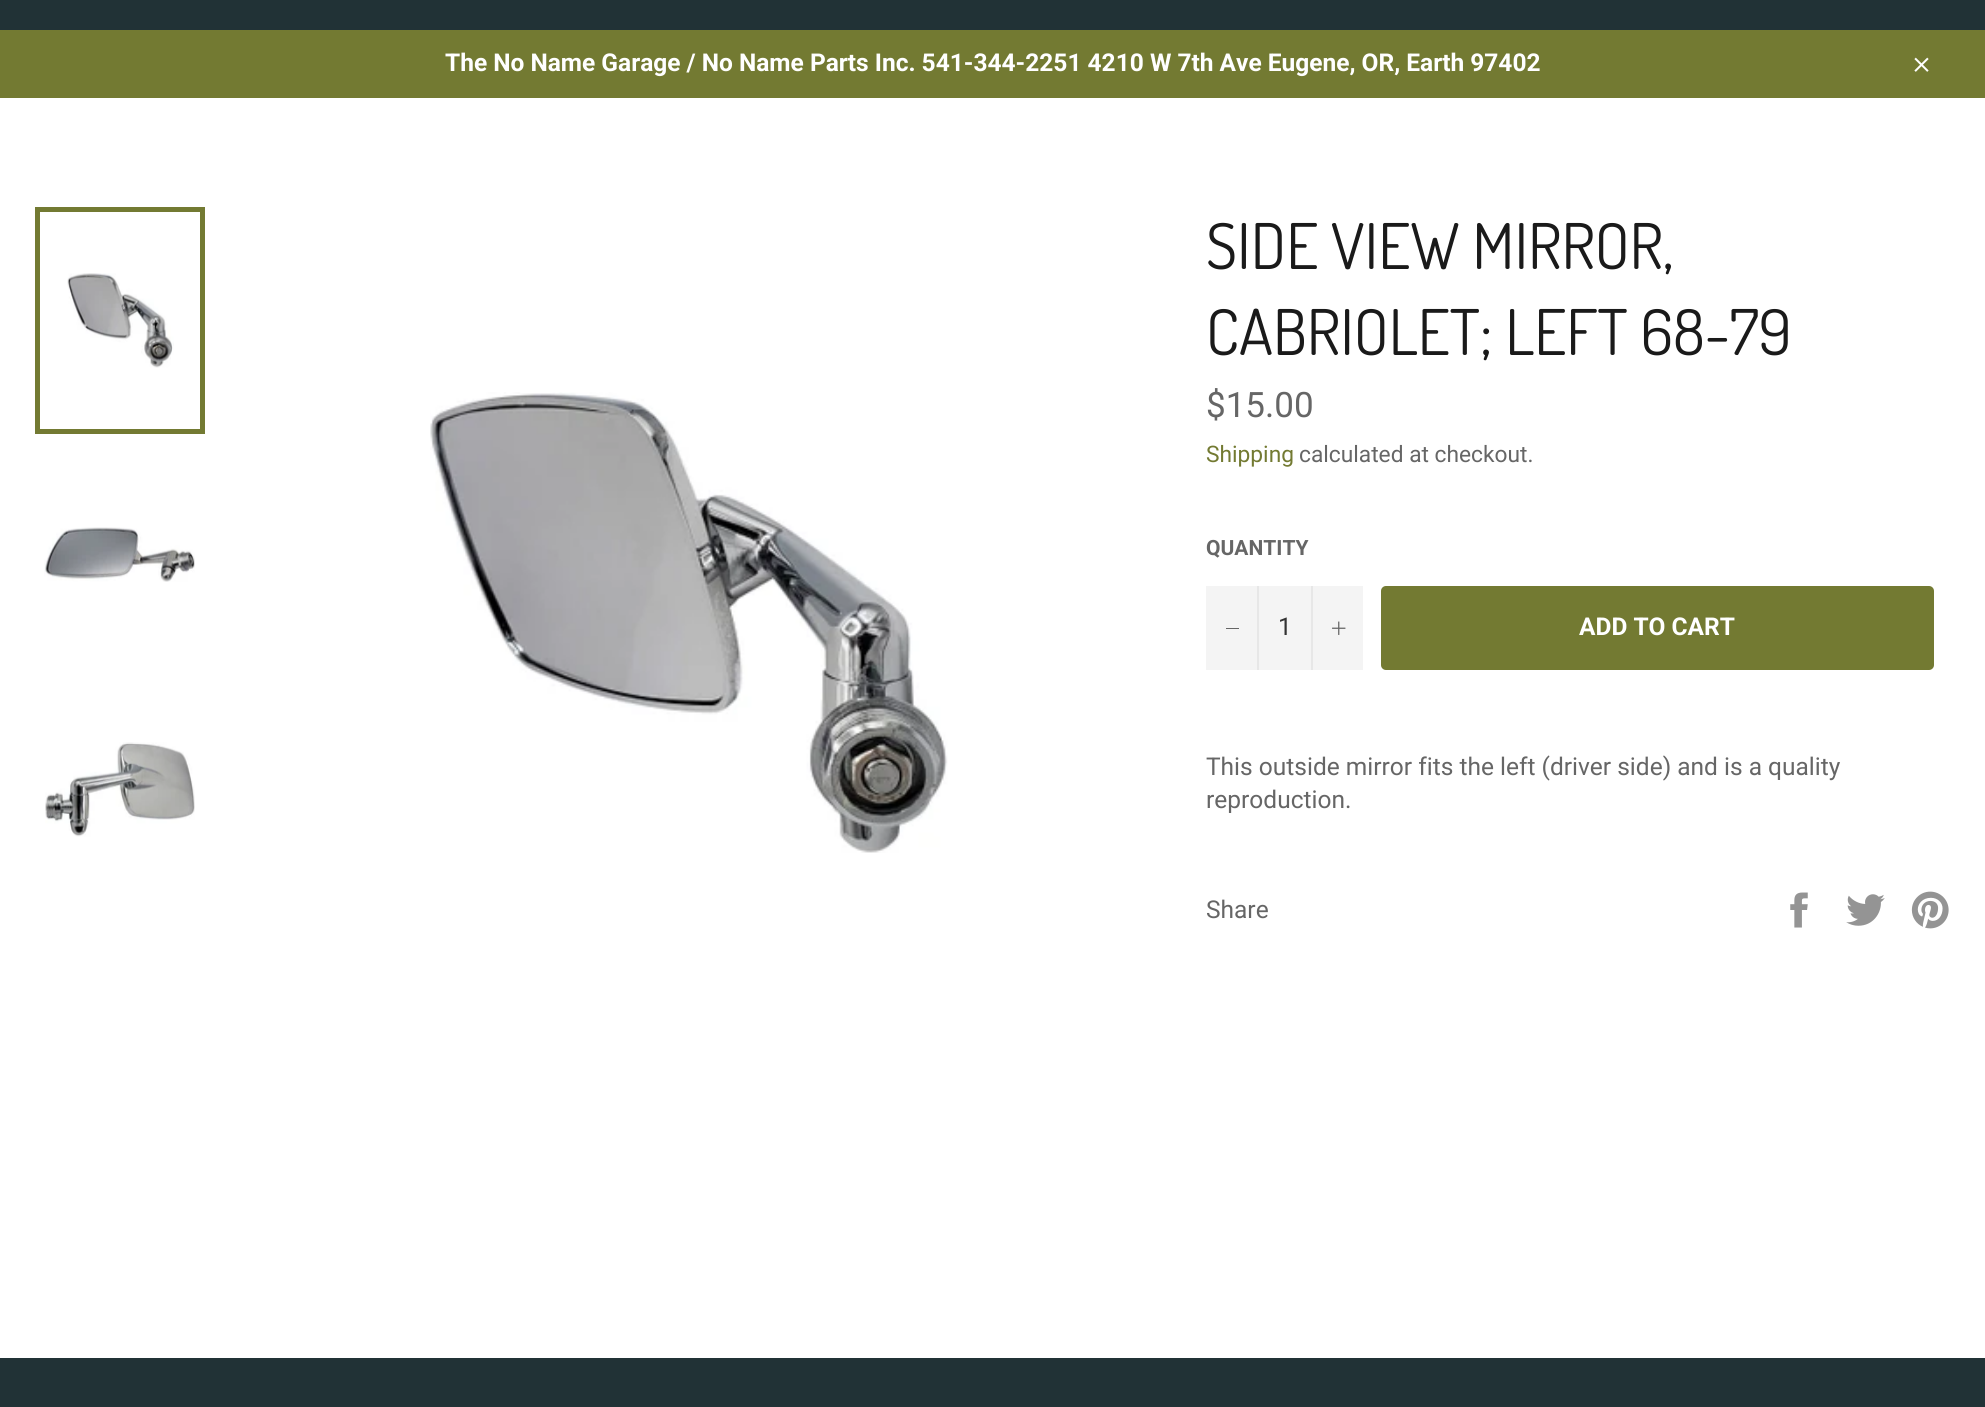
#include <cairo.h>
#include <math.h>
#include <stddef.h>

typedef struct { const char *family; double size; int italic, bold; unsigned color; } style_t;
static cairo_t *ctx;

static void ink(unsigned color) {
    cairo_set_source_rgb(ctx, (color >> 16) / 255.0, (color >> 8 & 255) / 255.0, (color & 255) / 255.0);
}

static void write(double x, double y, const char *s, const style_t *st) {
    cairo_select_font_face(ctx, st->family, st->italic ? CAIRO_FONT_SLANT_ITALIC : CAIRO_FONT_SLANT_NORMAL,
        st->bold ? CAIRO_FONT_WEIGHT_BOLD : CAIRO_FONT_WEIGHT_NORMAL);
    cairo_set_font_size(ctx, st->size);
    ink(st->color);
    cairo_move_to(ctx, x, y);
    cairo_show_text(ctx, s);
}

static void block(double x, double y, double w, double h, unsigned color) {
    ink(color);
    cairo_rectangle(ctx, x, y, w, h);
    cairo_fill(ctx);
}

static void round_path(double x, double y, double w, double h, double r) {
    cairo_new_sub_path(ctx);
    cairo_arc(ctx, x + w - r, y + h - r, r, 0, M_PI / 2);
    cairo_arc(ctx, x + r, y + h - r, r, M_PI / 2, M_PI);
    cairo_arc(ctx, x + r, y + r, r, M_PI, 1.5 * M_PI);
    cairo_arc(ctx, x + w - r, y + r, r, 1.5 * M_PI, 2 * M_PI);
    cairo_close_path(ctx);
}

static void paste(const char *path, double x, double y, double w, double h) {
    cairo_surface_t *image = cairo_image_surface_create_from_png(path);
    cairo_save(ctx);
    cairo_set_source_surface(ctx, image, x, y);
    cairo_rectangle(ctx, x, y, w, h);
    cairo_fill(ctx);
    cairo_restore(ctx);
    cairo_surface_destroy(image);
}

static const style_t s1 = {"Roboto", 24.5, 0, 1, 0xffffff};
static const style_t s2 = {"Dosis", 63, 0, 0, 0x1a1a1a};
static const style_t s3 = {"Roboto", 35, 0, 0, 0x666666};
static const style_t s4 = {"Roboto", 22.75, 0, 0, 0x737a32};
static const style_t s5 = {"Roboto", 22.75, 0, 0, 0x666666};
static const style_t s6 = {"Roboto", 21, 0, 1, 0x666666};
static const style_t s7 = {"Roboto", 24.5, 0, 0, 0x333333};
static const style_t s8 = {"Roboto", 24.5, 0, 0, 0x666666};

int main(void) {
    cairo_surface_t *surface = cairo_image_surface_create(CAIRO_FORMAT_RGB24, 1985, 1407);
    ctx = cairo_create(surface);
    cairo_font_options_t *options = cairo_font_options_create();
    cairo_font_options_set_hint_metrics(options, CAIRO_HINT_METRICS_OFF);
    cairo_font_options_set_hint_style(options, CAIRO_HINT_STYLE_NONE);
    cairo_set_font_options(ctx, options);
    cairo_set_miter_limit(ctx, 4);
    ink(0xffffff);
    cairo_paint(ctx);
    block(0, 0, 1985, 30, 0x213236);
    block(0, 30, 1985, 68, 0x737a32);
    write(445, 71, "The No Name Garage / No Name Parts Inc. 541-344-2251 4210 W 7th Ave Eugene, OR, Earth 97402", &s1);
    paste("pic1.png", 1914, 57, 15, 15);
    paste("pic2.png", 67, 273, 107, 95);
    cairo_rectangle(ctx, 37.5, 209.5, 165, 222);
    ink(0x737a32);
    cairo_set_line_width(ctx, 5);
    cairo_stroke(ctx);
    paste("pic3.png", 44, 527, 151, 55);
    paste("pic4.png", 45, 742, 150, 95);
    paste("pic5.png", 430, 392, 518, 461);
    write(1206, 269, "SIDE VIEW MIRROR,", &s2);
    write(1206, 355, "CABRIOLET; LEFT 68-79", &s2);
    write(1206, 417, "$15.00", &s3);
    write(1206, 462, "Shipping", &s4);
    write(1299, 462, "calculated at checkout.", &s5);
    write(1206, 555, "QUANTITY", &s6);
    block(1206, 586, 157, 84, 0xf4f4f4);
    block(1257, 586, 2, 84, 0xe7e7e7);
    block(1226, 628, 13, 1, 0x666666);
    write(1278, 635, "1", &s7);
    block(1311, 586, 2, 84, 0xe7e7e7);
    paste("pic6.png", 1332, 621, 14, 14);
    ink(0x737a32);
    round_path(1381, 586, 553, 84, 5);
    cairo_fill(ctx);
    write(1579, 635, "ADD TO CART", &s1);
    write(1206, 775, "This outside mirror fits the left (driver side) and is a quality", &s8);
    write(1206, 808, "reproduction.", &s8);
    write(1206, 918, "Share", &s8);
    paste("pic7.png", 1790, 892, 18, 36);
    paste("pic8.png", 1846, 894, 39, 32);
    paste("pic9.png", 1911, 891, 38, 38);
    block(0, 1358, 1985, 49, 0x213236);
    cairo_surface_write_to_png(surface, "screenshot.png");
    cairo_font_options_destroy(options);
    cairo_destroy(ctx);
    cairo_surface_destroy(surface);
    return 0;
}
